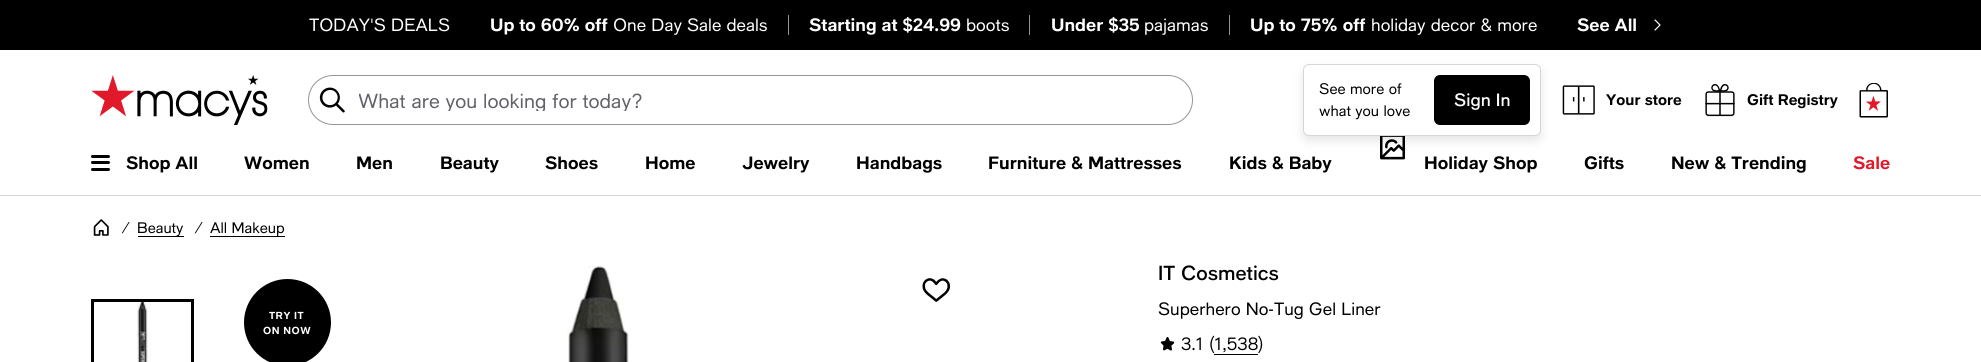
#include <cairo.h>
#include <math.h>
#include <stddef.h>

typedef struct { const char *family; double size; int italic, bold; unsigned color; } style_t;
static cairo_t *ctx;

static void ink(unsigned color) {
    cairo_set_source_rgb(ctx, (color >> 16) / 255.0, (color >> 8 & 255) / 255.0, (color & 255) / 255.0);
}

static void write(double x, double y, const char *s, const style_t *st) {
    cairo_select_font_face(ctx, st->family, st->italic ? CAIRO_FONT_SLANT_ITALIC : CAIRO_FONT_SLANT_NORMAL,
        st->bold ? CAIRO_FONT_WEIGHT_BOLD : CAIRO_FONT_WEIGHT_NORMAL);
    cairo_set_font_size(ctx, st->size);
    ink(st->color);
    cairo_move_to(ctx, x, y);
    cairo_show_text(ctx, s);
}

static void write_spaced(double x, double y, const char *s, double letter, double word) {
    cairo_move_to(ctx, x, y);
    while (*s) {
        char ch[5] = {0};
        int n = 0;
        do ch[n++] = *s++; while ((*s & 0xC0) == 0x80);
        cairo_show_text(ctx, ch);
        cairo_rel_move_to(ctx, letter + word * (*ch == ' '), 0);
    }
}

static void block(double x, double y, double w, double h, unsigned color) {
    ink(color);
    cairo_rectangle(ctx, x, y, w, h);
    cairo_fill(ctx);
}

static void round_path(double x, double y, double w, double h, double r) {
    cairo_new_sub_path(ctx);
    cairo_arc(ctx, x + w - r, y + h - r, r, 0, M_PI / 2);
    cairo_arc(ctx, x + r, y + h - r, r, M_PI / 2, M_PI);
    cairo_arc(ctx, x + r, y + r, r, M_PI, 1.5 * M_PI);
    cairo_arc(ctx, x + w - r, y + r, r, 1.5 * M_PI, 2 * M_PI);
    cairo_close_path(ctx);
}

static void blur_box(double x, double y, double w, double h, double r, double blur, double alpha) {
    cairo_push_group_with_content(ctx, CAIRO_CONTENT_ALPHA);
    cairo_set_operator(ctx, CAIRO_OPERATOR_SOURCE);
    for (int i = 15; i >= -15 && fmin(w, h) + blur * i / 3 > 0; i -= 2) {
        double e = blur * i / 6;
        cairo_set_source_rgba(ctx, 0, 0, 0, alpha * erfc((i - 1) / 8.5) / 2);
        round_path(x - e, y - e, w + 2 * e, h + 2 * e, fmax(0, fmin(r + e + blur * .6, fmin(w, h) / 2 + e)));
        cairo_fill(ctx);
    }
    cairo_pattern_t *soft = cairo_pop_group(ctx);
    cairo_mask(ctx, soft);
    cairo_pattern_destroy(soft);
}

static void paste(const char *path, double x, double y, double w, double h) {
    cairo_surface_t *image = cairo_image_surface_create_from_png(path);
    cairo_save(ctx);
    cairo_set_source_surface(ctx, image, x, y);
    cairo_rectangle(ctx, x, y, w, h);
    cairo_fill(ctx);
    cairo_restore(ctx);
    cairo_surface_destroy(image);
}

static const style_t s1 = {"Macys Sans", 17.5, 0, 0, 0xffffff};
static const style_t s2 = {"Macys Sans", 17.5, 0, 1, 0xffffff};
static const style_t s3 = {"Macys Sans", 20, 0, 0, 0x626369};
static const style_t s4 = {"Macys Sans", 15, 0, 0, 0x000000};
static const style_t s5 = {"Macys Sans Medium", 17.5, 0, 0, 0xffffff};
static const style_t s6 = {"Macys Sans", 15, 0, 1, 0x000000};
static const style_t s7 = {"Macys Sans", 17.5, 0, 1, 0x000000};
static const style_t s8 = {"Macys Sans", 17.5, 0, 1, 0xe01a2b};
static const style_t s9 = {"Macys Sans", 15, 1, 0, 0x000000};
static const style_t s10 = {"Macys Sans Medium", 20, 0, 0, 0x000000};
static const style_t s11 = {"Macys Sans", 17.5, 0, 0, 0x000000};

int main(void) {
    cairo_surface_t *surface = cairo_image_surface_create(CAIRO_FORMAT_RGB24, 1981, 362);
    ctx = cairo_create(surface);
    cairo_font_options_t *options = cairo_font_options_create();
    cairo_font_options_set_hint_metrics(options, CAIRO_HINT_METRICS_OFF);
    cairo_font_options_set_hint_style(options, CAIRO_HINT_STYLE_NONE);
    cairo_set_font_options(ctx, options);
    cairo_set_miter_limit(ctx, 4);
    ink(0xffffff);
    cairo_paint(ctx);
    block(0, 0, 1981, 50, 0x000000);
    write(309, 31, "TODAY'S DEALS", &s1);
    write(490, 31, "Up to 60% off", &s2);
    write(613, 31, "One Day Sale deals", &s1);
    block(788, 15, 1, 20, 0x959499);
    write(809, 31, "Starting at $24.99", &s2);
    write(966, 31, "boots", &s1);
    block(1029, 15, 1, 20, 0x959499);
    write(1051, 31, "Under $35", &s2);
    write(1144, 31, "pajamas", &s1);
    block(1229, 15, 1, 20, 0x959499);
    write(1250, 31, "Up to 75% off", &s2);
    write(1371, 31, "holiday decor & more", &s1);
    write(1577, 31, "See All", &s2);
    cairo_new_path(ctx);
    cairo_move_to(ctx, 1655, 20);
    cairo_line_to(ctx, 1660, 25);
    cairo_line_to(ctx, 1655, 30);
    cairo_set_line_width(ctx, 1.2);
    cairo_set_line_cap(ctx, CAIRO_LINE_CAP_ROUND);
    cairo_set_line_join(ctx, CAIRO_LINE_JOIN_ROUND);
    cairo_stroke(ctx);
    paste("pic1.png", 91, 75, 177, 50);
    round_path(308.5, 75.5, 884, 49, 24.5);
    ink(0x959499);
    cairo_set_line_width(ctx, 1);
    cairo_set_line_cap(ctx, CAIRO_LINE_CAP_BUTT);
    cairo_set_line_join(ctx, CAIRO_LINE_JOIN_MITER);
    cairo_stroke(ctx);
    paste("pic2.png", 319, 87, 26, 26);
    cairo_save(ctx);
    cairo_rectangle(ctx, 359, 89, 817, 22);
    cairo_clip(ctx);
    write(358, 108, "What are you looking for today?", &s3);
    cairo_restore(ctx);
    paste("pic6.png", 1380, 136, 25, 24);
    ink(0x000000);
    blur_box(1303, 69, 238, 72, 6, 5, 0.1);
    ink(0xffffff);
    round_path(1303.5, 64.5, 237, 71, 5.5);
    cairo_fill_preserve(ctx);
    ink(0xd6d6d6);
    cairo_stroke(ctx);
    write(1319, 94, "See more of", &s4);
    write(1319, 116, "what you love", &s4);
    round_path(1434, 75, 96, 50, 6);
    cairo_fill(ctx);
    write(1454, 106, "Sign In", &s5);
    paste("pic3.png", 1562, 85, 33, 30);
    write(1606, 105, "Your store", &s6);
    paste("pic4.png", 1705, 84, 30, 33);
    write(1747, 105, "Gift Registry", &s6);
    paste("pic5.png", 1859, 83, 29, 35);
    block(0, 195, 1981, 1, 0xd6d6d6);
    ink(0x000000);
    round_path(91, 155, 19, 3, 1.5);
    cairo_fill(ctx);
    round_path(91, 161, 19, 3, 1.5);
    cairo_fill(ctx);
    round_path(91, 168, 19, 3, 1.5);
    cairo_fill(ctx);
    write(126, 169, "Shop All", &s7);
    write(244, 169, "Women", &s7);
    write(356, 169, "Men", &s7);
    write(440, 169, "Beauty", &s7);
    write(545, 169, "Shoes", &s7);
    write(645, 169, "Home", &s7);
    write(742, 169, "Jewelry", &s7);
    write(856, 169, "Handbags", &s7);
    write(988, 169, "Furniture & Mattresses", &s7);
    write(1229, 169, "Kids & Baby", &s7);
    write(1424, 169, "Holiday Shop", &s7);
    write(1584, 169, "Gifts", &s7);
    write(1671, 169, "New & Trending", &s7);
    write(1853, 169, "Sale", &s8);
    paste("pic7.png", 93, 219, 16, 17);
    write(121, 233, "/", &s9);
    block(138, 236, 46, 1, 0x000000);
    write(137, 233, "Beauty", &s4);
    write(194, 233, "/", &s9);
    block(210, 236, 75, 1, 0x000000);
    write(210, 233, "All Makeup", &s4);
    paste("pic8.png", 136, 302, 15, 60);
    cairo_rectangle(ctx, 92.5, 300.5, 100, 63);
    cairo_set_line_width(ctx, 3);
    cairo_stroke(ctx);
    paste("pic9.png", 567, 265, 62, 97);
    paste("pic10.png", 922, 278, 28, 24);
    cairo_arc(ctx, 287.5, 322.5, 43.5, 0, 2 * M_PI);
    cairo_fill(ctx);
    cairo_select_font_face(ctx, "Macys Sans", CAIRO_FONT_SLANT_NORMAL, CAIRO_FONT_WEIGHT_BOLD);
    cairo_set_font_size(ctx, 10);
    ink(0xffffff);
    write_spaced(269, 319, "TRY IT", 0.5, 0);
    write_spaced(263, 334, "ON NOW", 0.5, 0);
    write(1158, 280, "IT Cosmetics", &s10);
    write(1158, 315, "Superhero No-Tug Gel Liner", &s11);
    paste("pic11.png", 1160, 337, 15, 14);
    write(1181, 350, "3.1 (1,538", &s11);
    write(1258, 350, ")", &s11);
    block(1214, 354, 44, 1, 0x000000);
    cairo_surface_write_to_png(surface, "screenshot.png");
    cairo_font_options_destroy(options);
    cairo_destroy(ctx);
    cairo_surface_destroy(surface);
    return 0;
}
